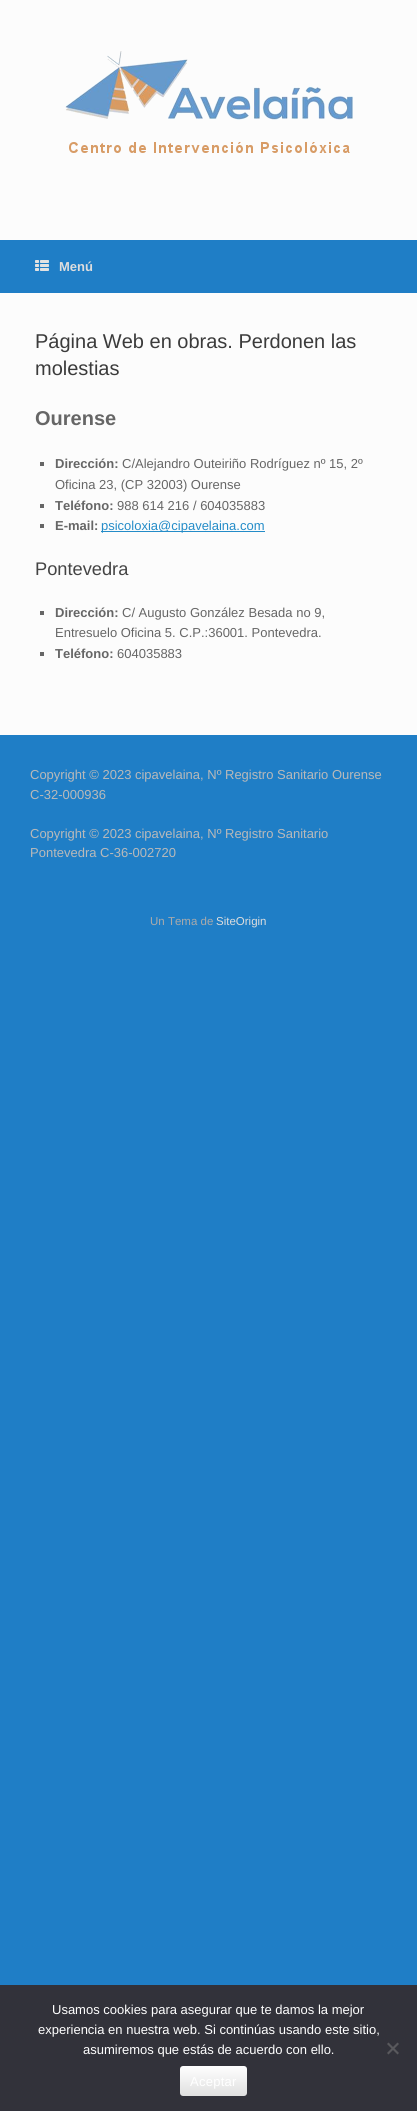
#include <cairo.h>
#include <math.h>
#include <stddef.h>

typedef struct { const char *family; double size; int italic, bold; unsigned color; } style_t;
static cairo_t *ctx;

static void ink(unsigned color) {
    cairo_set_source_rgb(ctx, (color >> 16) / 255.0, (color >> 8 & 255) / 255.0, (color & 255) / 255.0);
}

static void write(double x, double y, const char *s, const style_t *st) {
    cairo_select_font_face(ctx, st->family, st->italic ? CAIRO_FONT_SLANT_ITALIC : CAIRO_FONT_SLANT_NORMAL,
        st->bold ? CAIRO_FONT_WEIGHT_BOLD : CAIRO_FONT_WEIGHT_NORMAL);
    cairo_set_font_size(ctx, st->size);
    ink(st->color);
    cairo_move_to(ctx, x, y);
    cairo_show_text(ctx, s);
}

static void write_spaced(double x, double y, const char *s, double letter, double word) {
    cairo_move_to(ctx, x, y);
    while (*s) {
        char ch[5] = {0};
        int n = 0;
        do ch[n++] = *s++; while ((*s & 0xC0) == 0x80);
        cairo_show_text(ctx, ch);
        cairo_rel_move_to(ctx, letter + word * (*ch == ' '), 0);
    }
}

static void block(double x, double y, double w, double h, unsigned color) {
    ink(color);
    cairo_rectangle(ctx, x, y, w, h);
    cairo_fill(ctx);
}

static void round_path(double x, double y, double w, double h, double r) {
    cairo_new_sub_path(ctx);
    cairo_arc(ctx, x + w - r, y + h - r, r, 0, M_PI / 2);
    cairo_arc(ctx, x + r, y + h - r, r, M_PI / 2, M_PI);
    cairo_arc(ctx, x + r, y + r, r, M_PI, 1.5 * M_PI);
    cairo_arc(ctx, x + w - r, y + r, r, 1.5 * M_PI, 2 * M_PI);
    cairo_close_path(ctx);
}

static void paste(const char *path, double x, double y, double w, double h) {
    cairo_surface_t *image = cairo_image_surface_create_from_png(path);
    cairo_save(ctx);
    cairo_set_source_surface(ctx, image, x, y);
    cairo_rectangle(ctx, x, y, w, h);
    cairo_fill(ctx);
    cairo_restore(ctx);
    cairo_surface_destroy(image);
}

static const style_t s1 = {"Liberation Sans", 13, 0, 1, 0xdddddd};
static const style_t s2 = {"Liberation Sans", 20, 0, 0, 0x3b3b3b};
static const style_t s3 = {"Liberation Sans", 20, 0, 1, 0x666666};
static const style_t s4 = {"Liberation Sans", 13, 0, 1, 0x666666};
static const style_t s5 = {"Liberation Sans", 13, 0, 0, 0x666666};
static const style_t s6 = {"Liberation Sans", 13, 0, 0, 0x248cc8};
static const style_t s7 = {"Liberation Sans", 18.25, 0, 0, 0x444444};
static const style_t s8 = {"Liberation Sans", 13, 0, 0, 0xb9b9b9};
static const style_t s9 = {"Liberation Sans", 11.5, 0, 0, 0xaaaaaa};
static const style_t s10 = {"Liberation Sans", 11.5, 0, 0, 0xdddddd};
static const style_t s11 = {"Liberation Sans", 13, 0, 0, 0xffffff};

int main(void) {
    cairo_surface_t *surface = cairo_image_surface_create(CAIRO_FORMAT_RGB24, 417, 2111);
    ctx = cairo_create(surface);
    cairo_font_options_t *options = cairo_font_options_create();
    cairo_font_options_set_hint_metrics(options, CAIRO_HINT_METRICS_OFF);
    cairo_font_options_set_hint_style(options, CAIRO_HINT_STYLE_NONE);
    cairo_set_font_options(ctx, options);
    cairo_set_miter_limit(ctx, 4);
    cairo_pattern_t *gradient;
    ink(0x1f7ec6);
    cairo_paint(ctx);
    block(0, 0, 417, 240, 0xfcfcfc);
    paste("pic1.png", 65, 51, 288, 102);
    paste("pic2.png", 35, 260, 14, 11);
    write(59, 271, "Menú", &s1);
    block(0, 293, 417, 442, 0xfcfcfc);
    write(35, 348, "Página Web en obras. Perdonen las", &s2);
    write(35, 375, "molestias", &s2);
    write(35, 425, "Ourense", &s3);
    block(40, 462, 4, 4, 0x666666);
    write(55, 468, "Dirección:", &s4);
    write(122, 468, "C/Alejandro Outeiriño Rodríguez nº 15, 2º", &s5);
    write(55, 489, "Oficina 23, (CP 32003) Ourense", &s5);
    block(40, 504, 4, 4, 0x666666);
    write(55, 510, "Teléfono:", &s4);
    write(117, 510, "988 614 216 / 604035883", &s5);
    block(40, 524, 4, 4, 0x666666);
    write(55, 530, "E-mail:", &s4);
    block(101, 531, 164, 1, 0x248cc8);
    write(101, 530, "psicoloxia@cipavelaina.com", &s6);
    write(35, 575, "Pontevedra", &s7);
    block(40, 611, 4, 4, 0x666666);
    write(55, 617, "Dirección:", &s4);
    write(122, 617, "C/ Augusto González Besada no 9,", &s5);
    write(55, 637, "Entresuelo Oficina 5. C.P.:36001. Pontevedra.", &s5);
    block(40, 652, 4, 4, 0x666666);
    write(55, 658, "Teléfono:", &s4);
    write(117, 658, "604035883", &s5);
    write(30, 779, "Copyright © 2023 cipavelaina, Nº Registro Sanitario Ourense", &s8);
    write(30, 799, "C-32-000936", &s8);
    write(30, 838, "Copyright © 2023 cipavelaina, Nº Registro Sanitario", &s8);
    write(30, 857, "Pontevedra C-36-002720", &s8);
    write(150, 925, "Un Tema de", &s9);
    write(216, 925, "SiteOrigin", &s10);
    block(0, 1985, 417, 126, 0x32323a);
    write(52, 2014, "Usamos cookies para asegurar que te damos la mejor", &s11);
    write(38, 2034, "experiencia en nuestra web. Si continúas usando este sitio,", &s11);
    write(83, 2054, "asumiremos que estás de acuerdo con ello.", &s11);
    ink(0x59595d);
    cairo_new_path(ctx);
    cairo_move_to(ctx, 397.5, 2042.5);
    cairo_line_to(ctx, 399, 2044);
    cairo_line_to(ctx, 388.5, 2054.5);
    cairo_line_to(ctx, 387, 2053);
    cairo_close_path(ctx);
    cairo_fill(ctx);
    cairo_new_path(ctx);
    cairo_move_to(ctx, 387, 2044);
    cairo_line_to(ctx, 388.5, 2042.5);
    cairo_line_to(ctx, 399, 2053);
    cairo_line_to(ctx, 397.5, 2054.5);
    cairo_close_path(ctx);
    cairo_fill(ctx);
    gradient = cairo_pattern_create_linear(180, 2096, 180, 2066);
    cairo_pattern_add_color_stop_rgba(gradient, 0, 0.875, 0.875, 0.875, 1);
    cairo_pattern_add_color_stop_rgba(gradient, 1, 1, 1, 1, 1);
    cairo_set_source(ctx, gradient);
    cairo_pattern_destroy(gradient);
    round_path(180, 2066, 67, 30, 3);
    cairo_fill(ctx);
    ink(0xffffff);
    write_spaced(190, 2086, "Aceptar", 0.25, 0);
    cairo_surface_write_to_png(surface, "screenshot.png");
    cairo_font_options_destroy(options);
    cairo_destroy(ctx);
    cairo_surface_destroy(surface);
    return 0;
}
